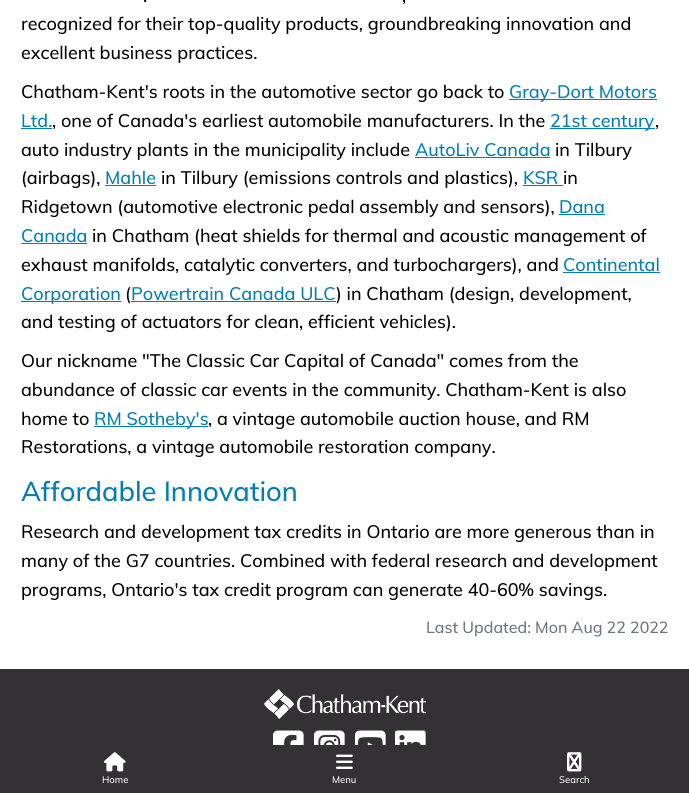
#include <cairo.h>
#include <math.h>
#include <stddef.h>

typedef struct { const char *family; double size; int italic, bold; unsigned color; } style_t;
static cairo_t *ctx;

static void ink(unsigned color) {
    cairo_set_source_rgb(ctx, (color >> 16) / 255.0, (color >> 8 & 255) / 255.0, (color & 255) / 255.0);
}

static void write(double x, double y, const char *s, const style_t *st) {
    cairo_select_font_face(ctx, st->family, st->italic ? CAIRO_FONT_SLANT_ITALIC : CAIRO_FONT_SLANT_NORMAL,
        st->bold ? CAIRO_FONT_WEIGHT_BOLD : CAIRO_FONT_WEIGHT_NORMAL);
    cairo_set_font_size(ctx, st->size);
    ink(st->color);
    cairo_move_to(ctx, x, y);
    cairo_show_text(ctx, s);
}

static void block(double x, double y, double w, double h, unsigned color) {
    ink(color);
    cairo_rectangle(ctx, x, y, w, h);
    cairo_fill(ctx);
}

static void paste(const char *path, double x, double y, double w, double h) {
    cairo_surface_t *image = cairo_image_surface_create_from_png(path);
    cairo_save(ctx);
    cairo_set_source_surface(ctx, image, x, y);
    cairo_rectangle(ctx, x, y, w, h);
    cairo_fill(ctx);
    cairo_restore(ctx);
    cairo_surface_destroy(image);
}

static const style_t s1 = {"Muli Medium", 18, 0, 0, 0x000000};
static const style_t s2 = {"Muli Medium", 18, 0, 0, 0x007db3};
static const style_t s3 = {"Muli Medium", 27.25, 0, 0, 0x007db3};
static const style_t s4 = {"Muli Medium", 16, 0, 0, 0x6c757d};
static const style_t s5 = {"Muli Medium", 9.5, 0, 0, 0xffffff};

int main(void) {
    cairo_surface_t *surface = cairo_image_surface_create(CAIRO_FORMAT_RGB24, 689, 793);
    ctx = cairo_create(surface);
    cairo_font_options_t *options = cairo_font_options_create();
    cairo_font_options_set_hint_metrics(options, CAIRO_HINT_METRICS_OFF);
    cairo_font_options_set_hint_style(options, CAIRO_HINT_STYLE_NONE);
    cairo_set_font_options(ctx, options);
    cairo_set_miter_limit(ctx, 4);
    ink(0xffffff);
    cairo_paint(ctx);
    write(143, 2, ".", &s1);
    write(402, 2, ",", &s1);
    write(21, 30, "recognized for their top-quality products, groundbreaking innovation and", &s1);
    write(21, 59, "excellent business practices.", &s1);
    write(21, 98, "Chatham-Kent's roots in the automotive sector go back to", &s1);
    block(509, 99, 148, 1, 0x007db3);
    write(509, 98, "Gray-Dort Motors", &s2);
    write(21, 127, "Ltd.", &s2);
    block(21, 128, 31, 1, 0x007db3);
    write(52, 127, ", one of Canada's earliest automobile manufacturers. In the", &s1);
    block(550, 128, 105, 1, 0x007db3);
    write(550, 127, "21st century", &s2);
    write(655, 127, ",", &s1);
    write(21, 156, "auto industry plants in the municipality include", &s1);
    write(415, 156, "AutoLiv Canada", &s2);
    block(415, 157, 135, 1, 0x007db3);
    write(555, 156, "in Tilbury", &s1);
    write(21, 184, "(airbags),", &s1);
    write(105, 184, "Mahle", &s2);
    block(105, 185, 51, 1, 0x007db3);
    write(161, 184, "in Tilbury (emissions controls and plastics),", &s1);
    write(523, 184, "KSR", &s2);
    block(523, 185, 40, 1, 0x007db3);
    write(563, 184, "in", &s1);
    write(21, 213, "Ridgetown (automotive electronic pedal assembly and sensors),", &s1);
    write(559, 213, "Dana", &s2);
    block(559, 214, 46, 1, 0x007db3);
    write(21, 242, "Canada", &s2);
    block(21, 243, 66, 1, 0x007db3);
    write(92, 242, "in Chatham (heat shields for thermal and acoustic management of", &s1);
    write(21, 271, "exhaust manifolds, catalytic converters, and turbochargers), and", &s1);
    write(563, 271, "Continental", &s2);
    block(563, 272, 97, 1, 0x007db3);
    block(21, 301, 100, 1, 0x007db3);
    write(21, 300, "Corporation", &s2);
    write(125, 300, "(", &s1);
    write(131, 300, "Powertrain Canada ULC", &s2);
    block(131, 301, 205, 1, 0x007db3);
    write(336, 300, ") in Chatham (design, development,", &s1);
    write(21, 328, "and testing of actuators for clean, efficient vehicles).", &s1);
    write(21, 367, "Our nickname \"The Classic Car Capital of Canada\" comes from the", &s1);
    write(21, 396, "abundance of classic car events in the community. Chatham-Kent is also", &s1);
    write(21, 425, "home to", &s1);
    block(94, 426, 114, 1, 0x007db3);
    write(94, 425, "RM Sotheby's", &s2);
    write(208, 425, ", a vintage automobile auction house, and RM", &s1);
    write(21, 453, "Restorations, a vintage automobile restoration company.", &s1);
    write(21, 501, "Affordable Innovation", &s3);
    write(21, 538, "Research and development tax credits in Ontario are more generous than in", &s1);
    write(21, 567, "many of the G7 countries. Combined with federal research and development", &s1);
    write(21, 596, "programs, Ontario's tax credit program can generate 40-60% savings.", &s1);
    write(426, 633, "Last Updated: Mon Aug 22 2022", &s4);
    block(0, 669, 689, 124, 0x333133);
    paste("pic1.png", 264, 689, 162, 30);
    paste("pic2.png", 273, 730, 31, 15);
    paste("pic3.png", 314, 730, 31, 15);
    paste("pic4.png", 355, 730, 31, 15);
    paste("pic5.png", 395, 730, 31, 15);
    paste("pic6.png", 104, 752, 22, 20);
    write(102, 783, "Home", &s5);
    paste("pic7.png", 336, 754, 17, 15);
    write(332, 783, "Menu", &s5);
    paste("pic8.png", 567, 752, 15, 20);
    write(559, 783, "Search", &s5);
    cairo_surface_write_to_png(surface, "screenshot.png");
    cairo_font_options_destroy(options);
    cairo_destroy(ctx);
    cairo_surface_destroy(surface);
    return 0;
}
